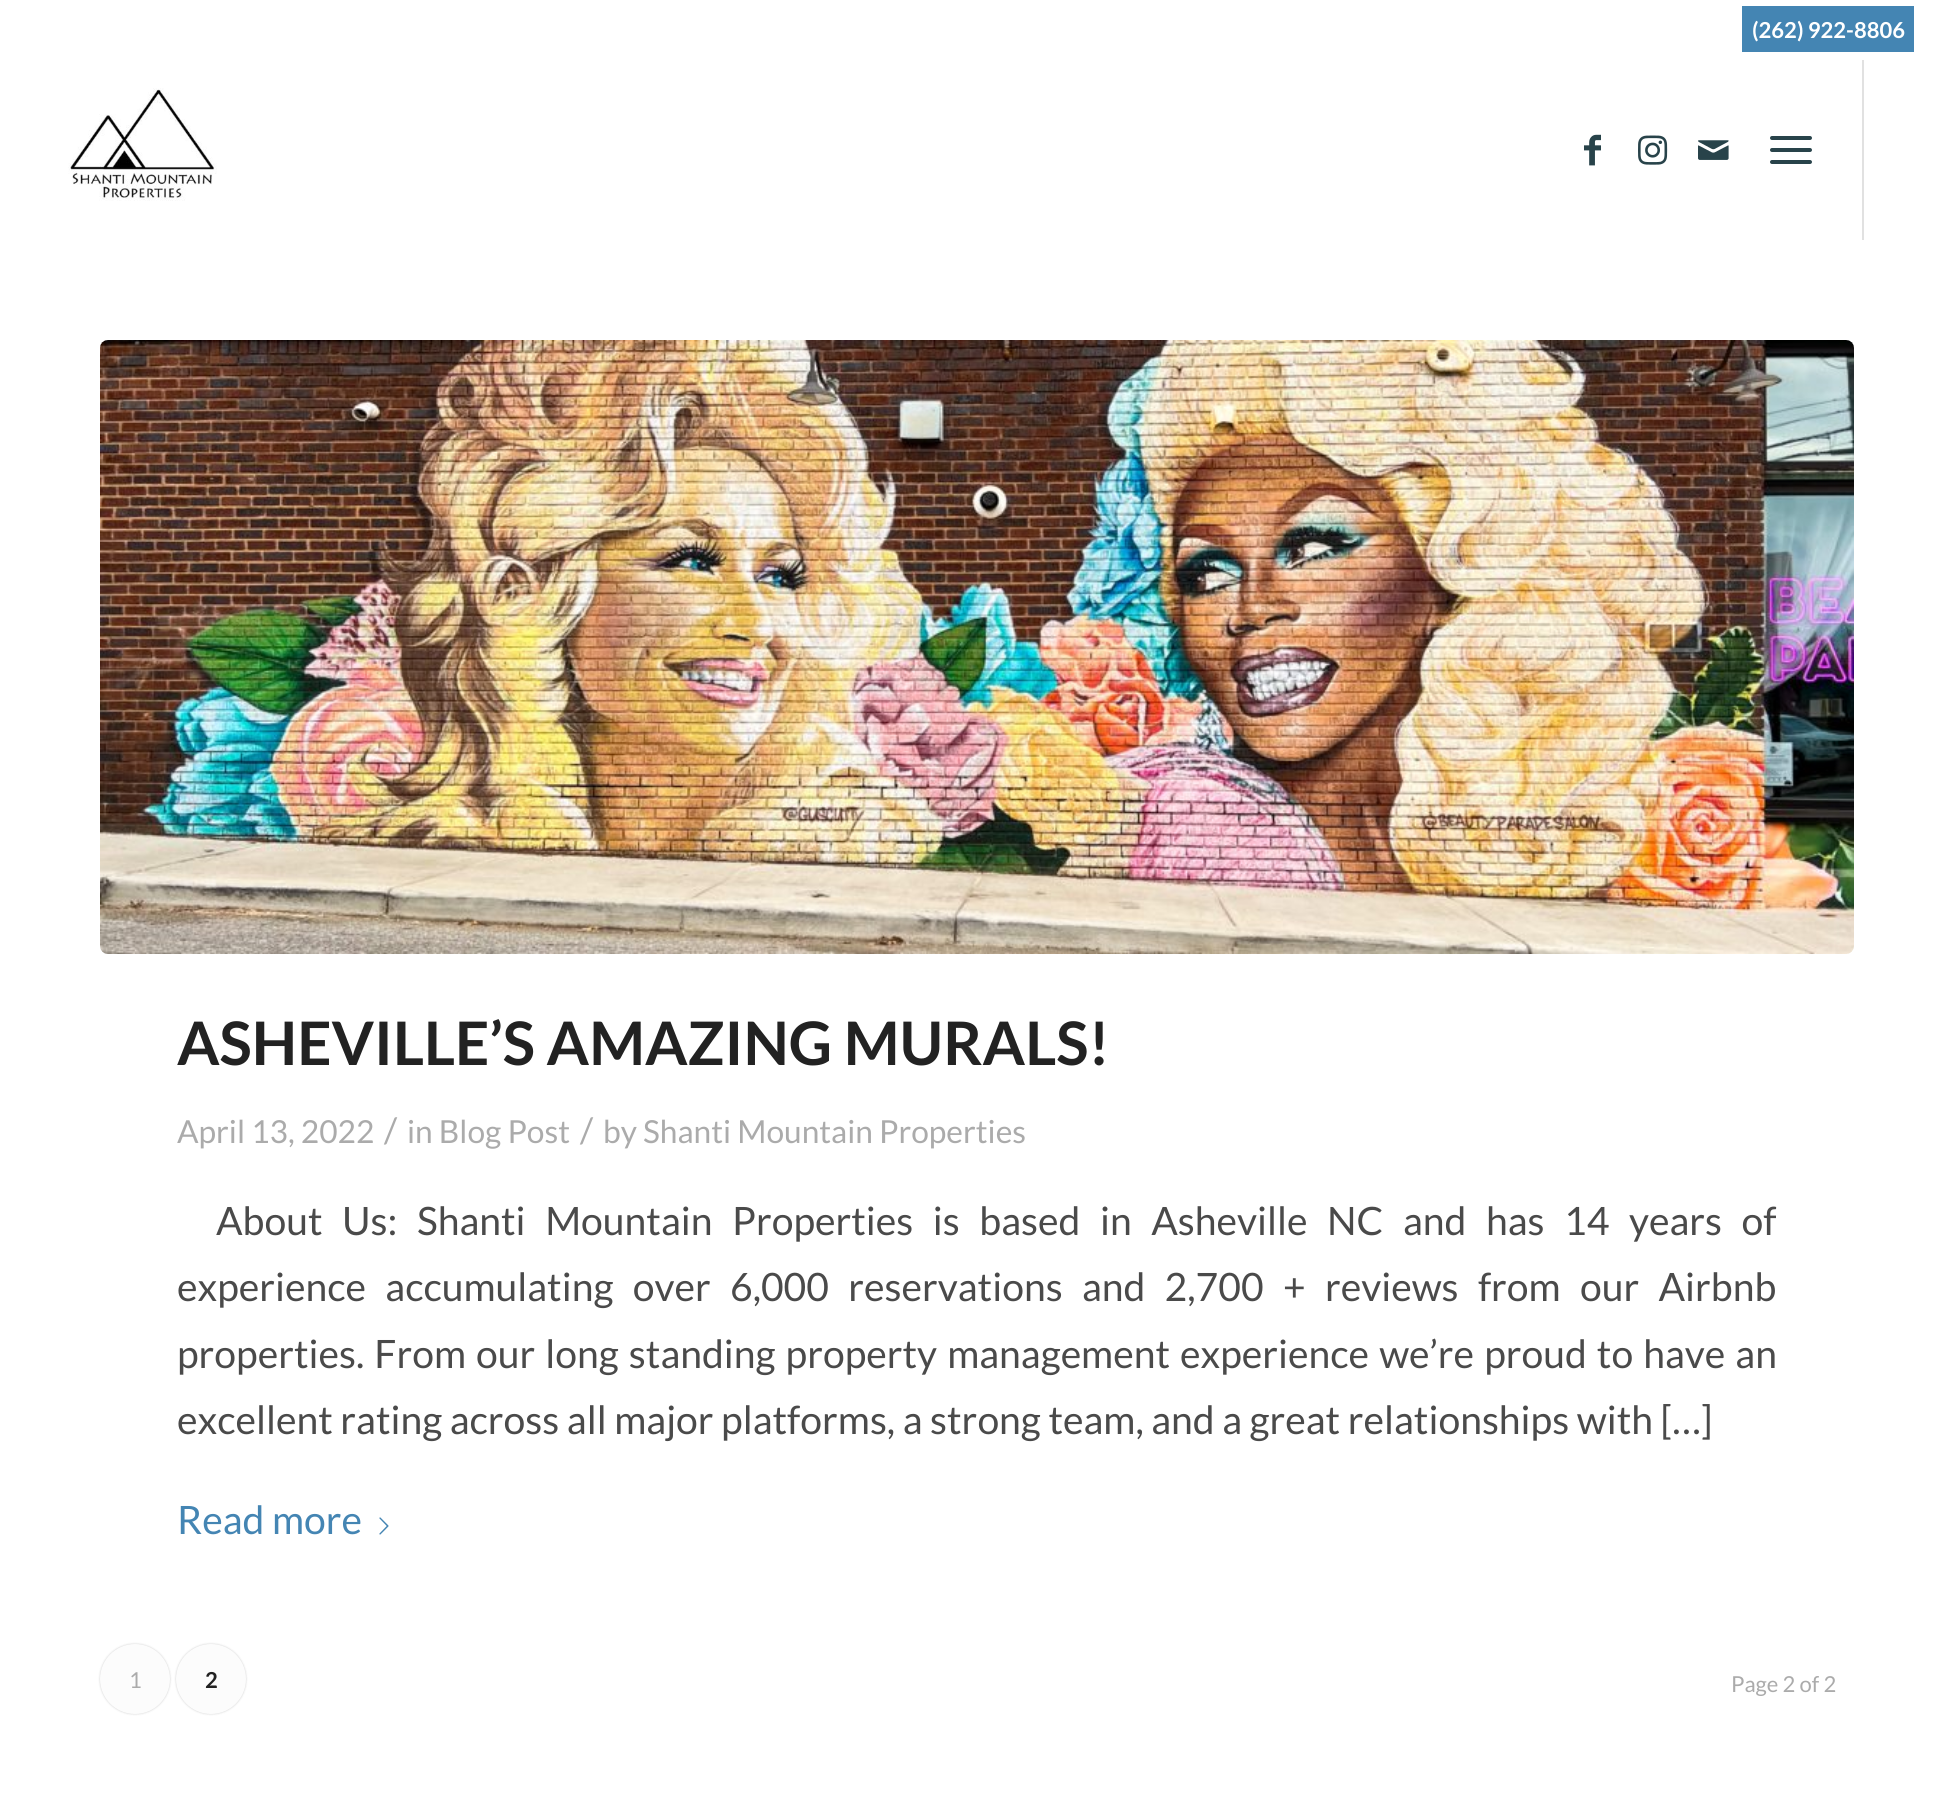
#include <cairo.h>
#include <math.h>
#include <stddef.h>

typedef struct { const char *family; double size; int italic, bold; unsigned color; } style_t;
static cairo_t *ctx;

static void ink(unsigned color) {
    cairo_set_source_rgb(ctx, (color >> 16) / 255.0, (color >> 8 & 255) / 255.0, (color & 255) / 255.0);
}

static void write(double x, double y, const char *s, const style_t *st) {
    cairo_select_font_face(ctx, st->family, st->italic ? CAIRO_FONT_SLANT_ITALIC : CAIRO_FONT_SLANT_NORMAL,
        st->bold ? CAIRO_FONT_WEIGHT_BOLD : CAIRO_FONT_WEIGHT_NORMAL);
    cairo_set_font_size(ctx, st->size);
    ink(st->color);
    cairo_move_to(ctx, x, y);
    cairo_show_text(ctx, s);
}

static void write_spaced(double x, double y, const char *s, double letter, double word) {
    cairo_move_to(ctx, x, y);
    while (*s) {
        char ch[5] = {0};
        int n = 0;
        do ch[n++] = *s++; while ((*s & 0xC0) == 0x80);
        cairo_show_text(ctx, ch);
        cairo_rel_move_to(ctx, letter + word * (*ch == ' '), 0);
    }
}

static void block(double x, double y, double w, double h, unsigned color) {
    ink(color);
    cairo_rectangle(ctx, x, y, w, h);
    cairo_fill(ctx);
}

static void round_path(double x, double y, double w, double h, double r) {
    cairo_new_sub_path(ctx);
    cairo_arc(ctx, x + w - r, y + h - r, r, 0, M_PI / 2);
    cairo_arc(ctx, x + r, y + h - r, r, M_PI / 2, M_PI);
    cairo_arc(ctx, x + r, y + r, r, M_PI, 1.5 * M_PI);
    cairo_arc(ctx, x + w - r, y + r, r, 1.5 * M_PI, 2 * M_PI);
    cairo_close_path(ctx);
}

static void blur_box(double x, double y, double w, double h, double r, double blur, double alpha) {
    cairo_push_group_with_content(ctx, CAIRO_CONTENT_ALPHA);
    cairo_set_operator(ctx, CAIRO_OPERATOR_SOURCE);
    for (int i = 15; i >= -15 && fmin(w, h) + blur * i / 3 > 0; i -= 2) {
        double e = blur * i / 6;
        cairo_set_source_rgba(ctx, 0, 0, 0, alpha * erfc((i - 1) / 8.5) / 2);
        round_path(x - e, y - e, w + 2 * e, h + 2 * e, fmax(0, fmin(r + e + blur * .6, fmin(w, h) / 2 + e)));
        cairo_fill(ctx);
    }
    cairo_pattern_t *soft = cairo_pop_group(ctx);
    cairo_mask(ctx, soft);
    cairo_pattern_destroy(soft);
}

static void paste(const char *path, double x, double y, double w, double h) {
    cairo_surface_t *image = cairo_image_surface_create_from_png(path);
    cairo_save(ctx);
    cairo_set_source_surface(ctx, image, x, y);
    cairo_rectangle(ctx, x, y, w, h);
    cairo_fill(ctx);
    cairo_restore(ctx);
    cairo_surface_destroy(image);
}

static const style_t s1 = {"Lato", 22, 0, 1, 0xffffff};
static const style_t s2 = {"Lato", 60, 0, 1, 0x222222};
static const style_t s3 = {"Lato", 31.7, 0, 0, 0xababab};
static const style_t s4 = {"Lato", 35, 0, 0, 0xababab};
static const style_t s5 = {"Lato", 39.1, 0, 0, 0x4a4a4a};
static const style_t s6 = {"Lato", 39.1, 0, 0, 0x4485b3};
static const style_t s7 = {"Lato", 22, 0, 0, 0xababab};
static const style_t s8 = {"Lato", 22, 0, 1, 0x222222};

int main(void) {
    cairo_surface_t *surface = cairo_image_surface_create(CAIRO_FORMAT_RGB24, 1953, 1796);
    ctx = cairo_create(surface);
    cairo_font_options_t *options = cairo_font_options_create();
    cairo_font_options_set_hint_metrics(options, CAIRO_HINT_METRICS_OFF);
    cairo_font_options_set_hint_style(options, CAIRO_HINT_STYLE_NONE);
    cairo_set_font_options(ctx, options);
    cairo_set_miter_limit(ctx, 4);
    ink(0xffffff);
    cairo_paint(ctx);
    block(1742, 6, 172, 46, 0x4485b3);
    write(1752, 38, "(262) 922-8806", &s1);
    paste("pic1.png", 68, 88, 149, 113);
    paste("pic2.png", 1584, 134, 17, 32);
    paste("pic3.png", 1638, 135, 30, 30);
    paste("pic4.png", 1698, 140, 31, 20);
    block(1862, 60, 2, 180, 0xe1e1e1);
    ink(0x28434a);
    round_path(1770, 148, 42, 4, 2);
    cairo_fill(ctx);
    round_path(1770, 136, 42, 4, 2);
    cairo_fill(ctx);
    round_path(1770, 160, 42, 4, 2);
    cairo_fill(ctx);
    paste("pic5.png", 100, 340, 1754, 614);
    write(177, 1065, "ASHEVILLE’S AMAZING MURALS!", &s2);
    write(177, 1143, "April 13, 2022", &s3);
    write(384, 1143, "/", &s4);
    write(407, 1143, "in Blog Post", &s3);
    write(580, 1143, "/", &s4);
    write(603, 1143, "by Shanti Mountain Properties", &s3);
    cairo_set_font_size(ctx, 39.1);
    ink(0x4a4a4a);
    write_spaced(216, 1235, "About Us: Shanti Mountain Properties is based in Asheville NC and has 14 years of", 0, 12);
    write_spaced(177, 1301, "experience accumulating over 6,000 reservations and 2,700 + reviews from our Airbnb", 0, 11.75);
    write_spaced(177, 1368, "properties. From our long standing property management experience we’re proud to have an", 0, 2.5);
    write(177, 1434, "excellent rating across all major platforms, a strong team, and a great relationships with […]", &s5);
    write(177, 1534, "Read more", &s6);
    paste("pic6.png", 379, 1517, 10, 18);
    ink(0x000000);
    blur_box(100, 1644, 70, 70, 35, 1, 0.2);
    ink(0xfcfcfc);
    cairo_arc(ctx, 135, 1679, 35, 0, 2 * M_PI);
    cairo_fill(ctx);
    write(129, 1688, "1", &s7);
    ink(0x000000);
    blur_box(176, 1644, 70, 70, 35, 1, 0.2);
    ink(0xfcfcfc);
    cairo_arc(ctx, 211, 1679, 35, 0, 2 * M_PI);
    cairo_fill(ctx);
    write(205, 1688, "2", &s8);
    write(1731, 1692, "Page 2 of 2", &s7);
    cairo_surface_write_to_png(surface, "screenshot.png");
    cairo_font_options_destroy(options);
    cairo_destroy(ctx);
    cairo_surface_destroy(surface);
    return 0;
}
